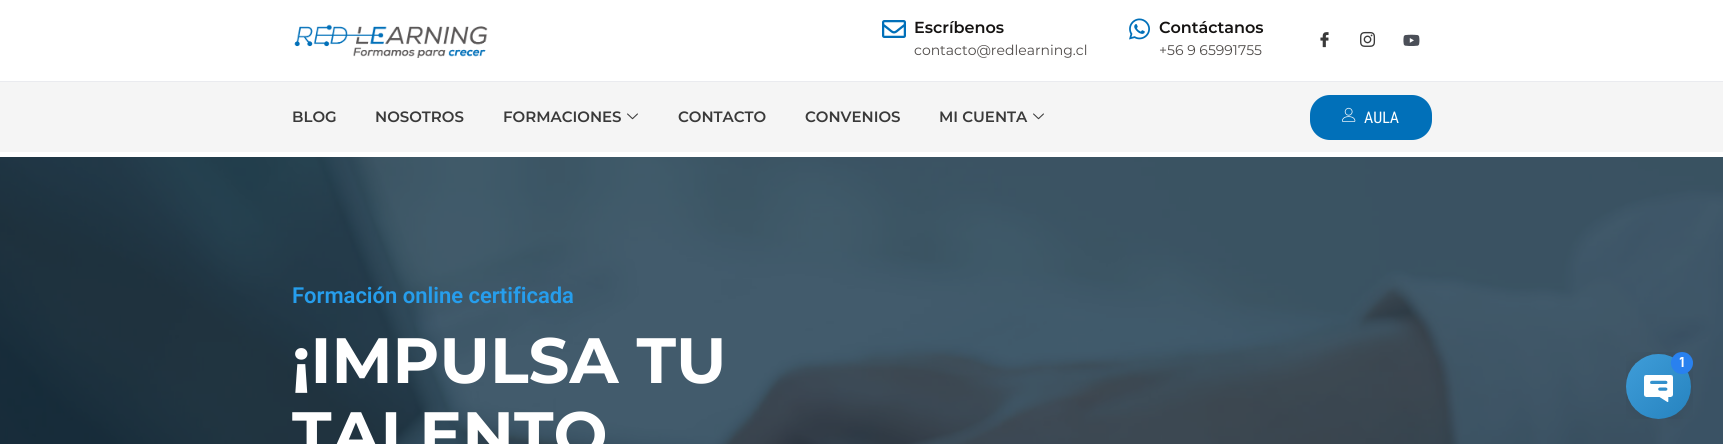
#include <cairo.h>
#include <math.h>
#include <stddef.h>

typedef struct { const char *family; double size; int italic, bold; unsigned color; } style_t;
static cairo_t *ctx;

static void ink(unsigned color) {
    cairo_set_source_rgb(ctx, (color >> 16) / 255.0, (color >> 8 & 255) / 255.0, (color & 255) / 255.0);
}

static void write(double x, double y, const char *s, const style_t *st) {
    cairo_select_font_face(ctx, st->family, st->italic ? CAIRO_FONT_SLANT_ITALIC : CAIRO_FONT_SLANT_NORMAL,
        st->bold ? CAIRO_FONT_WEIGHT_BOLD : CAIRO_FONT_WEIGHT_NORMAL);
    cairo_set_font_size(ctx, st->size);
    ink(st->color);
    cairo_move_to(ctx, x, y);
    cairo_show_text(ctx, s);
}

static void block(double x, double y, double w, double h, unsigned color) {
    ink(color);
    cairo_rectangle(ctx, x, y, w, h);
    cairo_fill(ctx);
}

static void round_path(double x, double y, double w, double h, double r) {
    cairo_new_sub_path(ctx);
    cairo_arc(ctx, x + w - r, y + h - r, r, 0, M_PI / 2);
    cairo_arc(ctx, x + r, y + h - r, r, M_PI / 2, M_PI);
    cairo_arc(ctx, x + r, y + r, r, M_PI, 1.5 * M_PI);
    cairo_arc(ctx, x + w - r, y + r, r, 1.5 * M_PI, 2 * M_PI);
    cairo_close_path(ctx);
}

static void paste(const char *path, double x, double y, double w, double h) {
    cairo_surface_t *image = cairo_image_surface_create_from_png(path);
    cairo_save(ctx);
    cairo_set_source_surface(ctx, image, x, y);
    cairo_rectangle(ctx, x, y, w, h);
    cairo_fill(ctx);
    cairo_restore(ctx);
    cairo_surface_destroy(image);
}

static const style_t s1 = {"Montserrat SemiBold", 16, 0, 0, 0x151312};
static const style_t s2 = {"Montserrat", 14, 0, 0, 0x4f4b49};
static const style_t s3 = {"Montserrat SemiBold", 15, 0, 0, 0x3a3a3a};
static const style_t s4 = {"Roboto Condensed", 16, 0, 0, 0xffffff};
static const style_t s5 = {"Roboto SemiBold", 22, 0, 0, 0x269eed};
static const style_t s6 = {"Montserrat", 64, 0, 1, 0xffffff};

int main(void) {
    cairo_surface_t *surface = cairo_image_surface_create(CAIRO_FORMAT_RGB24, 1723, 444);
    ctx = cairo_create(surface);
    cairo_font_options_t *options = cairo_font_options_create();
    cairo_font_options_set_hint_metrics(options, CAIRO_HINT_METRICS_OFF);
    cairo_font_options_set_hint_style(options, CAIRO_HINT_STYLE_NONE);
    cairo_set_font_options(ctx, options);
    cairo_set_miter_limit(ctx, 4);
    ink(0xffffff);
    cairo_paint(ctx);
    block(0, 81, 1723, 1, 0xeaebef);
    paste("pic1.png", 294, 24, 194, 34);
    paste("pic2.png", 882, 20, 24, 18);
    write(914, 33, "Escríbenos", &s1);
    write(914, 55, "contacto@redlearning.cl", &s2);
    paste("pic3.png", 1129, 18, 21, 22);
    write(1159, 33, "Contáctanos", &s1);
    write(1159, 55, "+56 9 65991755", &s2);
    paste("pic4.png", 1320, 32, 9, 16);
    paste("pic5.png", 1360, 31, 16, 16);
    paste("pic6.png", 1403, 34, 17, 12);
    block(0, 82, 1723, 70, 0xf5f5f5);
    write(292, 122, "BLOG", &s3);
    write(375, 122, "NOSOTROS", &s3);
    write(503, 122, "FORMACIONES", &s3);
    paste("pic7.png", 627, 113, 11, 7);
    write(678, 122, "CONTACTO", &s3);
    write(805, 122, "CONVENIOS", &s3);
    write(939, 122, "MI CUENTA", &s3);
    paste("pic7.png", 1033, 113, 11, 7);
    ink(0x0170b9);
    round_path(1310, 95, 122, 45, 20);
    cairo_fill(ctx);
    paste("pic8.png", 1342, 107, 14, 15);
    write(1364, 123, "AULA", &s4);
    paste("pic9.png", 0, 157, 1723, 287);
    write(292, 303, "Formación online certificada", &s5);
    write(292, 383, "¡IMPULSA TU", &s6);
    write(292, 457, "TALENTO", &s6);
    paste("pic10.png", 1626, 352, 67, 67);
    cairo_surface_write_to_png(surface, "screenshot.png");
    cairo_font_options_destroy(options);
    cairo_destroy(ctx);
    cairo_surface_destroy(surface);
    return 0;
}
